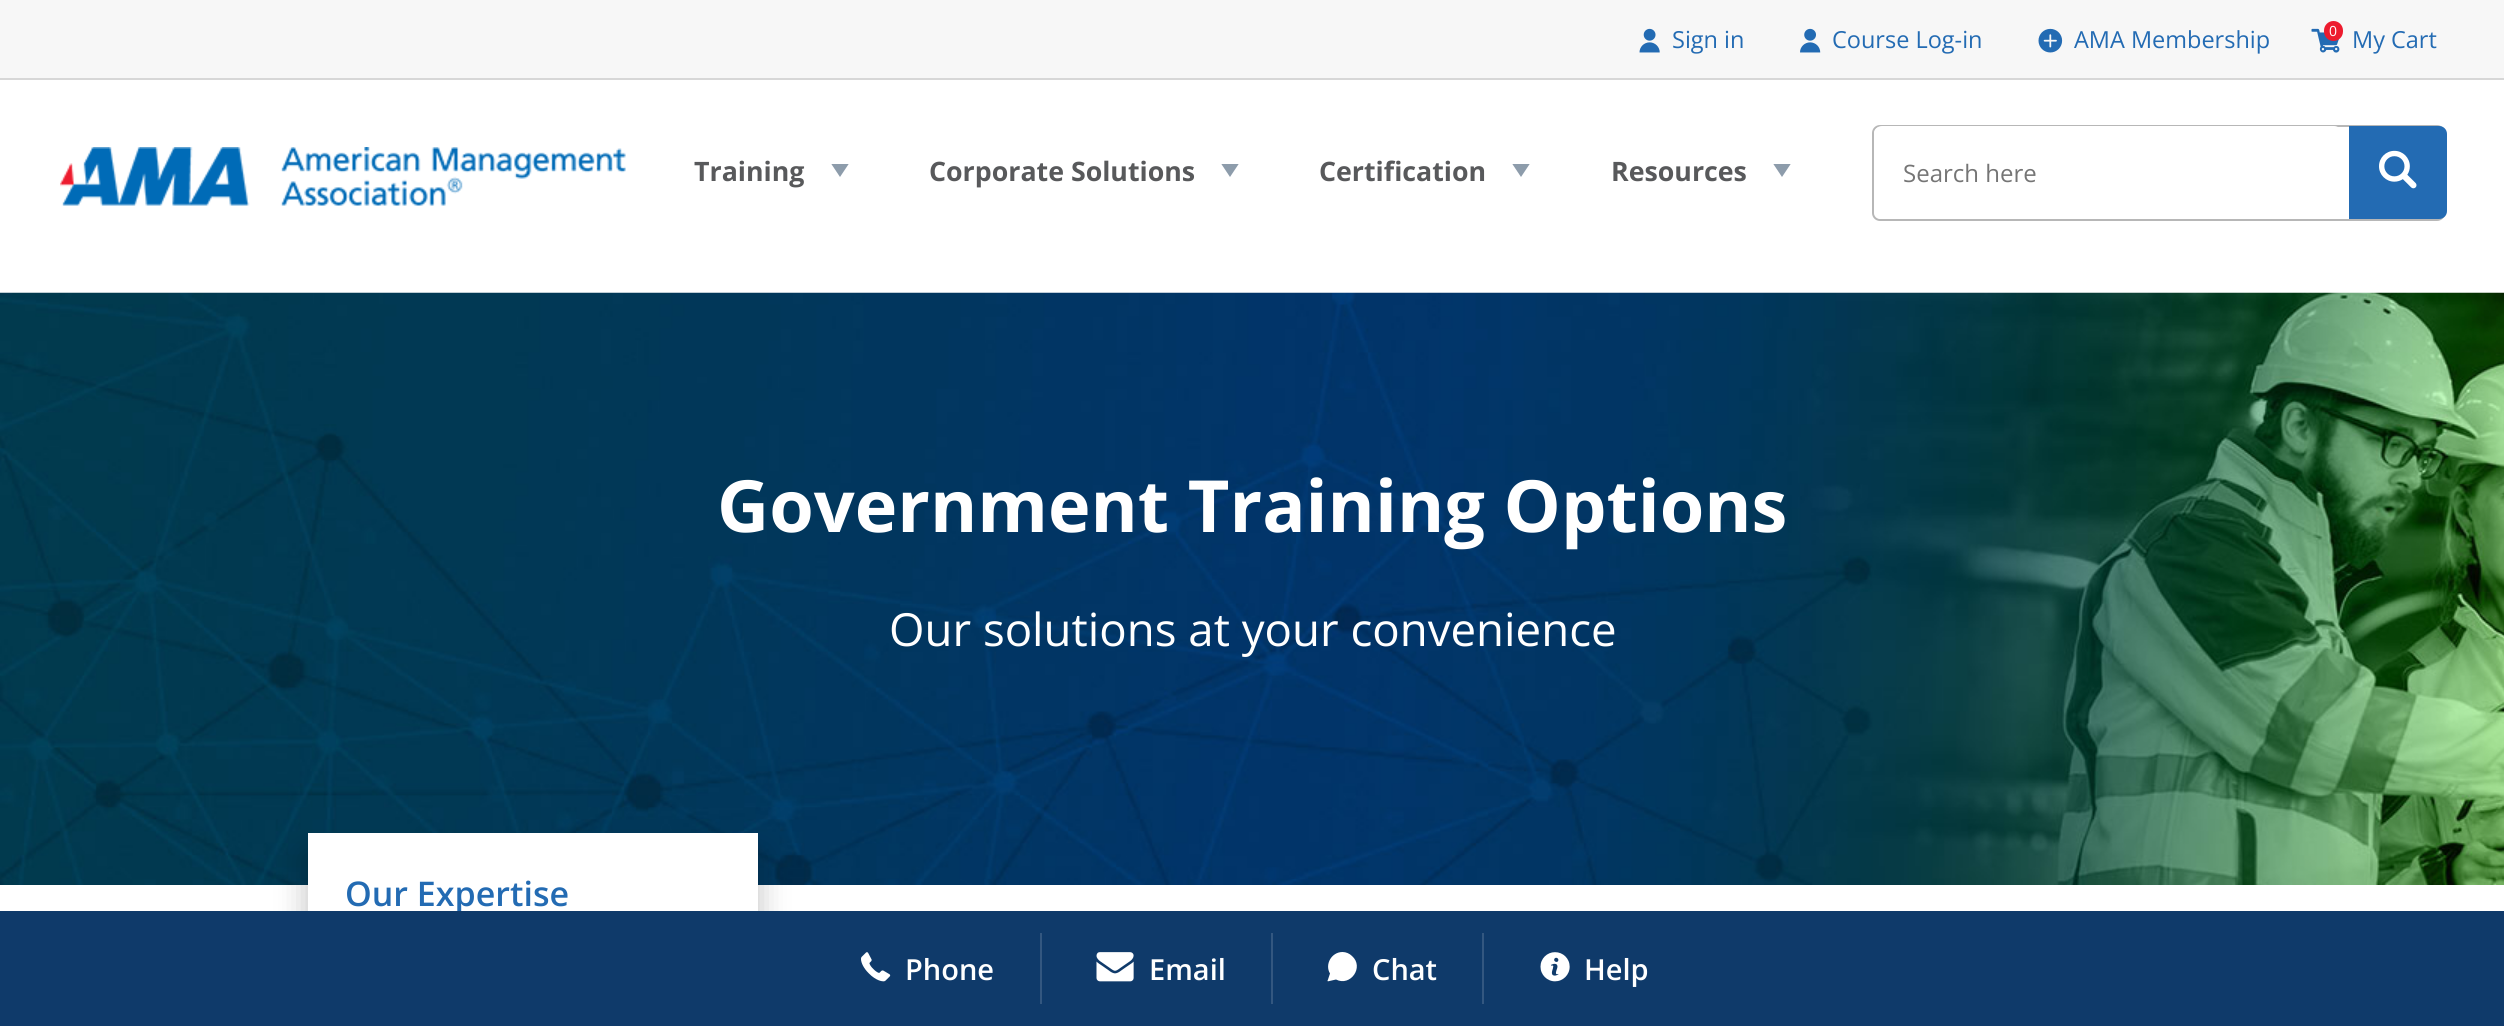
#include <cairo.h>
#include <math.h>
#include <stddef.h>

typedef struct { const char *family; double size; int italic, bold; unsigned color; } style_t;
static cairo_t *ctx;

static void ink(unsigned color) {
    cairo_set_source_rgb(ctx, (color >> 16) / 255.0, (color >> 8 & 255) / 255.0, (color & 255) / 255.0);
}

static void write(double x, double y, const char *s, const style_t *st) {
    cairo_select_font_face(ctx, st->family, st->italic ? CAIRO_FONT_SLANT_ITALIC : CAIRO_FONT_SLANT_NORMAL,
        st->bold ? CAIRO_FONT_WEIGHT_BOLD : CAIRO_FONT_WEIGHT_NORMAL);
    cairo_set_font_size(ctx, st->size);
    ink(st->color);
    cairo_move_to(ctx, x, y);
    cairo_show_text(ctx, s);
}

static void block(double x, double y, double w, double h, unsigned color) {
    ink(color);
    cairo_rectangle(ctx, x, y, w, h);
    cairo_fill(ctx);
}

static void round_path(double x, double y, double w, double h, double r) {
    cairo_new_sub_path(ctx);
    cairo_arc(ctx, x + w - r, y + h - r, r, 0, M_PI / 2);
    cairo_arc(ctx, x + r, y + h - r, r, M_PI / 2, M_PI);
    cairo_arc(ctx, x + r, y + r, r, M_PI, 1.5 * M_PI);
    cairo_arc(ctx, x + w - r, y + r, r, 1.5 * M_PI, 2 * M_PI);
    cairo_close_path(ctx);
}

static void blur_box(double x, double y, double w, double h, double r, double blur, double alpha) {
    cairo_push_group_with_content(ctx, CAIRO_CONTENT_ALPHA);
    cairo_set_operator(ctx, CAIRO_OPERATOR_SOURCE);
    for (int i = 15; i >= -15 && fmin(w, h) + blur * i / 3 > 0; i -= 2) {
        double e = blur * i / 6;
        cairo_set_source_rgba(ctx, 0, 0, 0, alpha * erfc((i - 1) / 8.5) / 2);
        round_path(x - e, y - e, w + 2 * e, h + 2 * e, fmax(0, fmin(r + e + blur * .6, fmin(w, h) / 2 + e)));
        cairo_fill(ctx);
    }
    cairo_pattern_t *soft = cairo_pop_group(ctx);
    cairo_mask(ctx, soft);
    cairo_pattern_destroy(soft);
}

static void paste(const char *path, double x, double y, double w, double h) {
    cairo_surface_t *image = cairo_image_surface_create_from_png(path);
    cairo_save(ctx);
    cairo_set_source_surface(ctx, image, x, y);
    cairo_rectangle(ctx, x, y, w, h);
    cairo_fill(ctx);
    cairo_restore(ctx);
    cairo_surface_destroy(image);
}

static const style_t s1 = {"Open Sans", 23.5, 0, 0, 0x236bb3};
static const style_t s2 = {"Open Sans", 14, 0, 0, 0xffffff};
static const style_t s3 = {"Open Sans", 26.75, 0, 1, 0x58595b};
static const style_t s4 = {"Open Sans", 24, 0, 0, 0x757575};
static const style_t s5 = {"Open Sans", 72, 0, 1, 0xffffff};
static const style_t s6 = {"Open Sans", 45.6, 0, 0, 0xffffff};
static const style_t s7 = {"Open Sans SemiBold", 34, 0, 0, 0x236bb3};
static const style_t s8 = {"Open Sans SemiBold", 29, 0, 0, 0xffffff};

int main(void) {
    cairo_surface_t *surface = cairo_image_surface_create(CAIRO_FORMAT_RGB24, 2504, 1026);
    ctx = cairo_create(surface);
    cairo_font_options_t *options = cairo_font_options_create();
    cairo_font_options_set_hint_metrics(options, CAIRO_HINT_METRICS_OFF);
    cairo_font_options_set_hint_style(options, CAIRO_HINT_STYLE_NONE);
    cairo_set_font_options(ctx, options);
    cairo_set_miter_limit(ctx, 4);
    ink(0xffffff);
    cairo_paint(ctx);
    block(0, 0, 2504, 78, 0xf7f7f7);
    block(0, 78, 2504, 2, 0xd7d7d7);
    paste("pic1.png", 1639, 28, 21, 25);
    write(1672, 48, "Sign in", &s1);
    paste("pic2.png", 1800, 28, 21, 25);
    write(1832, 48, "Course Log-in", &s1);
    paste("pic3.png", 2038, 28, 25, 25);
    write(2074, 48, "AMA Membership", &s1);
    paste("pic4.png", 2311, 28, 29, 25);
    ink(0xed1b2e);
    round_path(2324, 21, 19, 20, 9.5);
    cairo_fill(ctx);
    write(2329, 36, "0", &s2);
    write(2352, 48, "My Cart", &s1);
    paste("pic5.png", 60, 147, 566, 59);
    write(694, 181, "Training", &s3);
    cairo_save(ctx);
    cairo_rectangle(ctx, 831, 164, 18, 13);
    cairo_clip(ctx);
    ink(0x8d9cab);
    cairo_new_path(ctx);
    cairo_move_to(ctx, 831, 163.5);
    cairo_line_to(ctx, 849, 163.5);
    cairo_line_to(ctx, 840, 177);
    cairo_close_path(ctx);
    cairo_fill(ctx);
    cairo_restore(ctx);
    write(929, 181, "Corporate Solutions", &s3);
    cairo_save(ctx);
    cairo_rectangle(ctx, 1221, 164, 18, 13);
    cairo_clip(ctx);
    ink(0x8d9cab);
    cairo_new_path(ctx);
    cairo_move_to(ctx, 1221, 163.5);
    cairo_line_to(ctx, 1239, 163.5);
    cairo_line_to(ctx, 1230, 177);
    cairo_close_path(ctx);
    cairo_fill(ctx);
    cairo_restore(ctx);
    write(1319, 181, "Certification", &s3);
    cairo_save(ctx);
    cairo_rectangle(ctx, 1512, 164, 18, 13);
    cairo_clip(ctx);
    ink(0x8d9cab);
    cairo_new_path(ctx);
    cairo_move_to(ctx, 1512, 163.5);
    cairo_line_to(ctx, 1530, 163.5);
    cairo_line_to(ctx, 1521, 177);
    cairo_close_path(ctx);
    cairo_fill(ctx);
    cairo_restore(ctx);
    write(1611, 181, "Resources", &s3);
    cairo_save(ctx);
    cairo_rectangle(ctx, 1773, 164, 18, 13);
    cairo_clip(ctx);
    ink(0x8d9cab);
    cairo_new_path(ctx);
    cairo_move_to(ctx, 1773, 163.5);
    cairo_line_to(ctx, 1791, 163.5);
    cairo_line_to(ctx, 1782, 177);
    cairo_close_path(ctx);
    cairo_fill(ctx);
    cairo_restore(ctx);
    round_path(1873, 126, 571, 94, 7);
    ink(0xb7b7b7);
    cairo_stroke(ctx);
    ink(0xffffff);
    round_path(1874, 126, 468, 93, 8);
    cairo_fill(ctx);
    write(1903, 182, "Search here", &s4);
    ink(0x236bb3);
    cairo_new_path(ctx);
    cairo_move_to(ctx, 2349, 126);
    cairo_line_to(ctx, 2439, 126);
    cairo_curve_to(ctx, 2443.5, 126, 2447, 129.5, 2447, 134);
    cairo_line_to(ctx, 2447, 211);
    cairo_curve_to(ctx, 2447, 215.5, 2443.5, 219, 2439, 219);
    cairo_line_to(ctx, 2349, 219);
    cairo_close_path(ctx);
    cairo_fill(ctx);
    paste("pic6.png", 2379, 150, 38, 39);
    paste("pic7.png", 0, 292, 2504, 593);
    write(717, 532, "Government Training Options", &s5);
    write(889, 646, "Our solutions at your convenience", &s6);
    ink(0x000000);
    blur_box(303, 854, 459, 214, 0, 14, 0.2);
    block(308, 833, 450, 78, 0xffffff);
    write(345, 906, "Our Expertise", &s7);
    block(0, 911, 2504, 115, 0x0f3a6a);
    block(1040, 933, 2, 71, 0x335780);
    paste("pic8.png", 861, 952, 30, 30);
    write(905, 980, "Phone", &s8);
    block(1271, 933, 2, 71, 0x335780);
    paste("pic9.png", 1096, 952, 38, 30);
    write(1149, 980, "Email", &s8);
    block(1482, 933, 2, 71, 0x335780);
    ink(0xffffff);
    cairo_new_path(ctx);
    cairo_move_to(ctx, 1342.5, 952);
    cairo_curve_to(ctx, 1331.5, 952, 1324.5, 964.5, 1330, 973.5);
    cairo_line_to(ctx, 1328, 979.5);
    cairo_curve_to(ctx, 1327, 981.5, 1327.5, 981.5, 1329.5, 981);
    cairo_line_to(ctx, 1336, 979.5);
    cairo_curve_to(ctx, 1350.5, 987, 1364.5, 967, 1352, 956);
    cairo_curve_to(ctx, 1349.5, 953.5, 1346, 952, 1342.5, 952);
    cairo_close_path(ctx);
    cairo_fill(ctx);
    write(1372, 980, "Chat", &s8);
    paste("pic10.png", 1540, 952, 30, 30);
    write(1584, 980, "Help", &s8);
    cairo_surface_write_to_png(surface, "screenshot.png");
    cairo_font_options_destroy(options);
    cairo_destroy(ctx);
    cairo_surface_destroy(surface);
    return 0;
}
